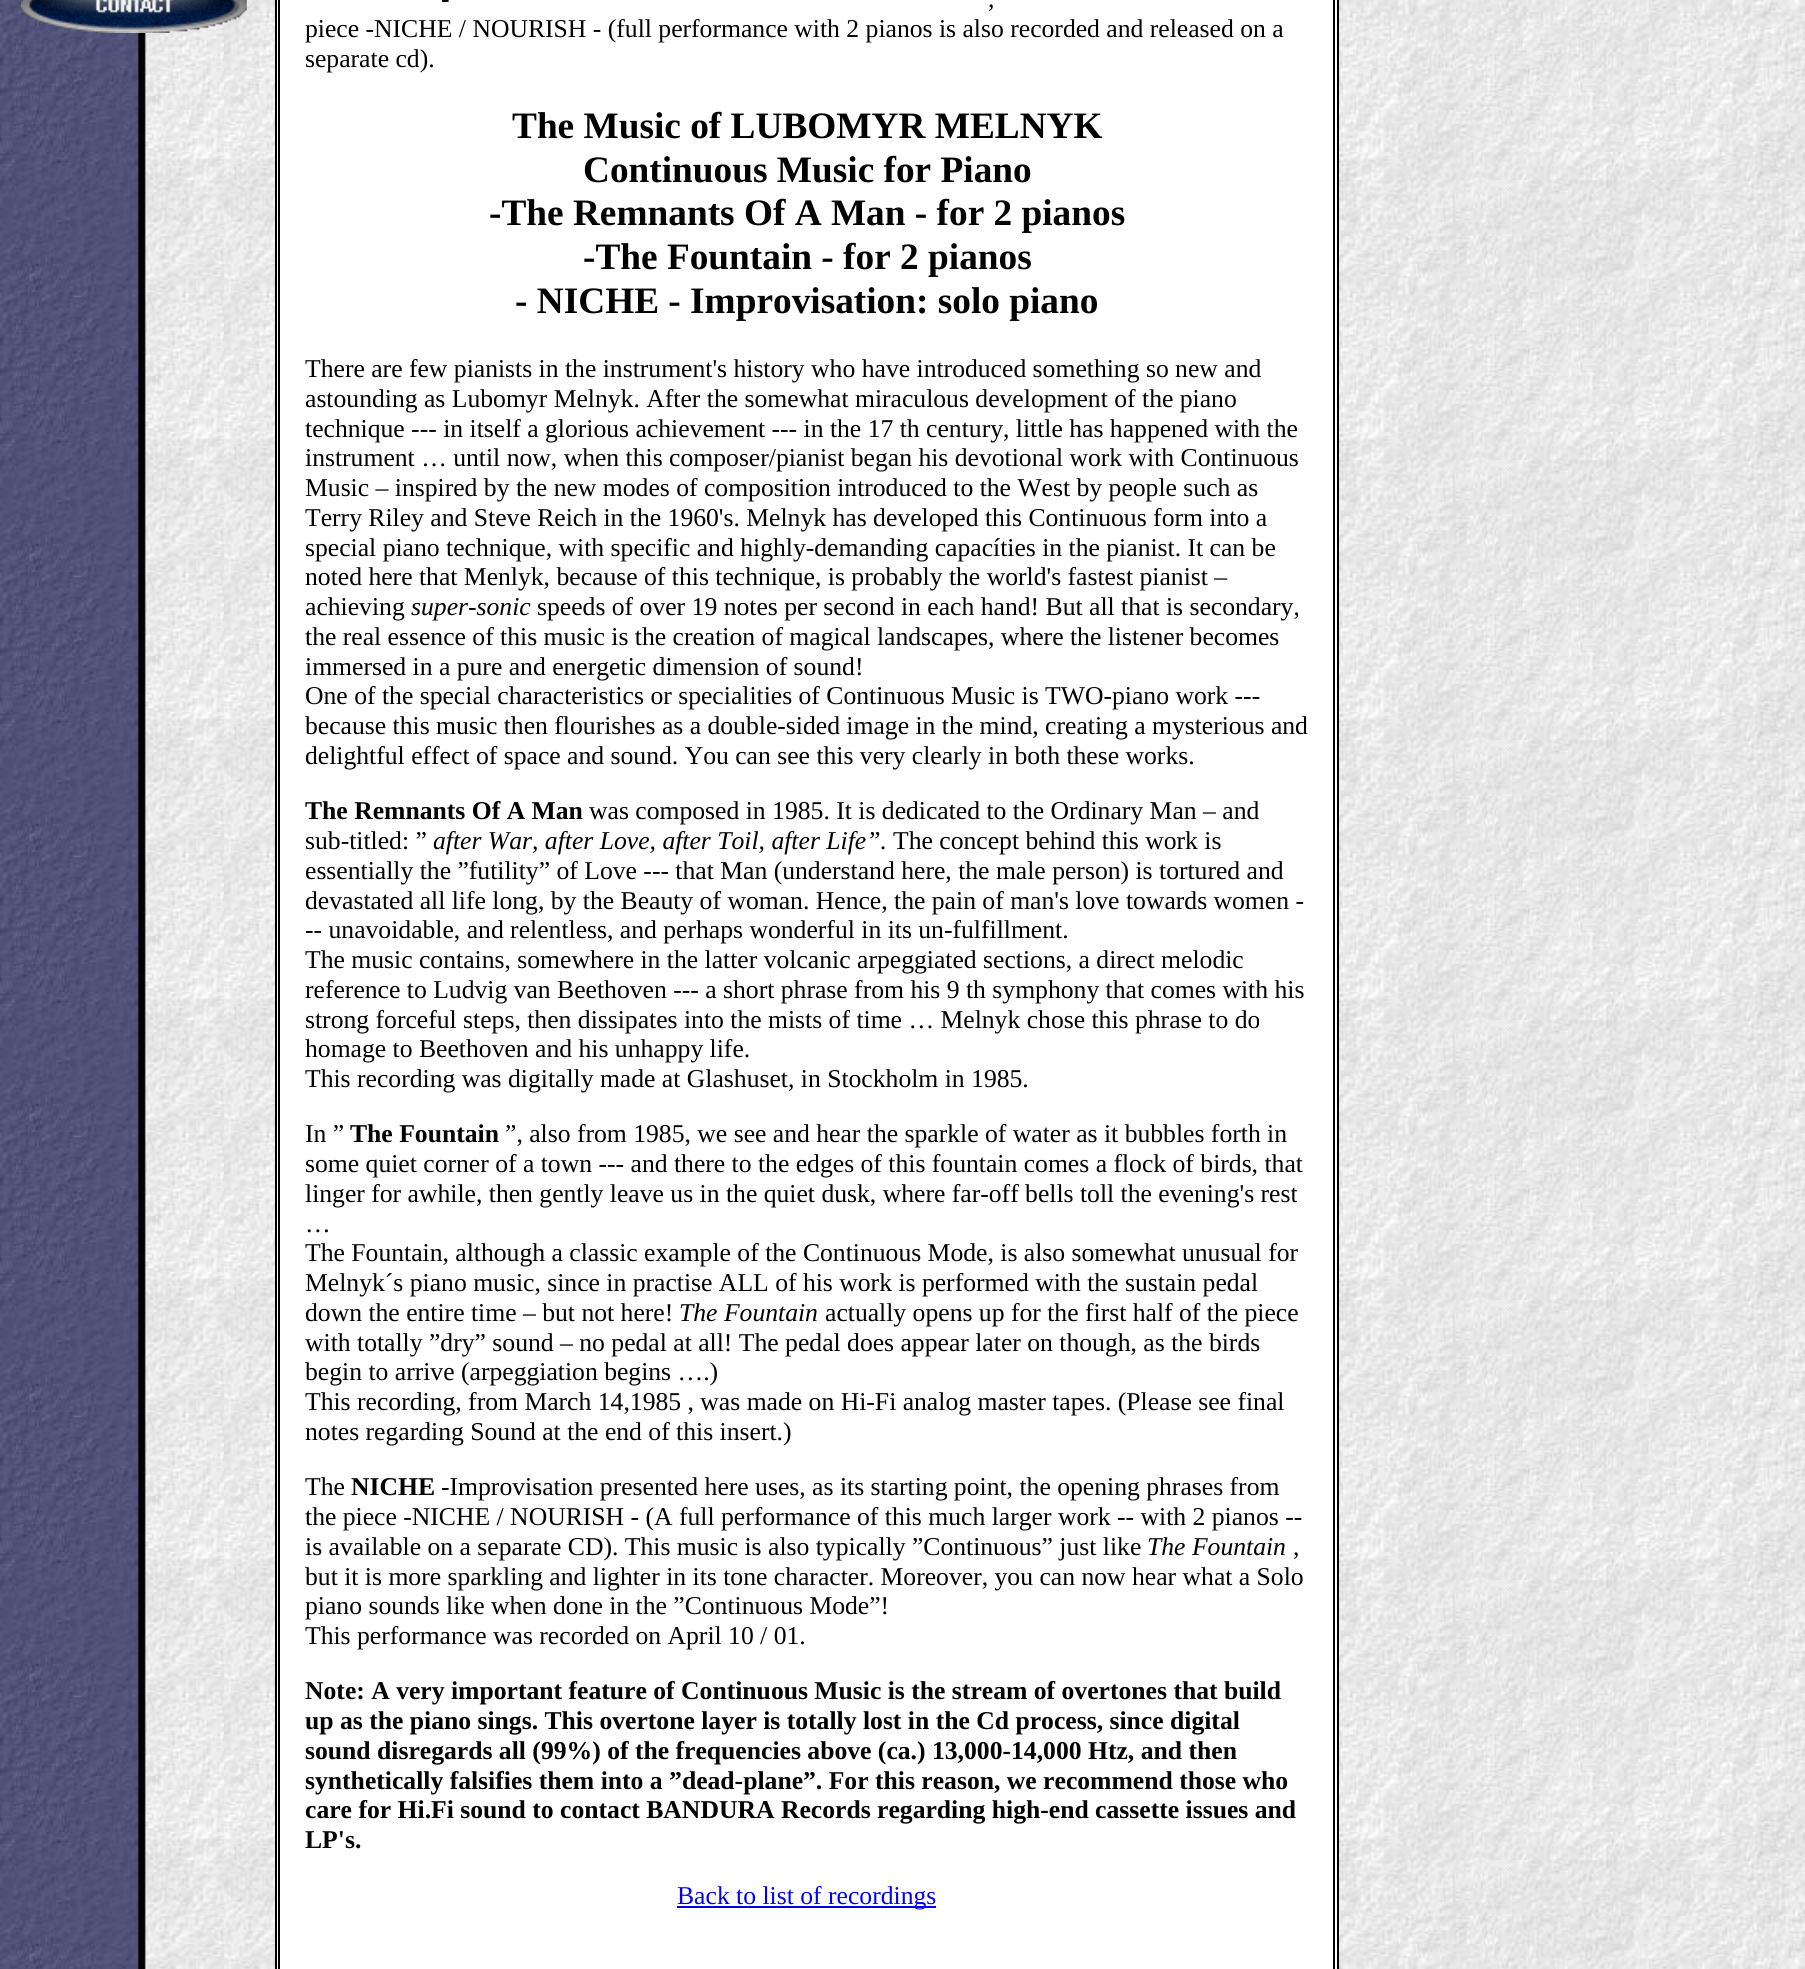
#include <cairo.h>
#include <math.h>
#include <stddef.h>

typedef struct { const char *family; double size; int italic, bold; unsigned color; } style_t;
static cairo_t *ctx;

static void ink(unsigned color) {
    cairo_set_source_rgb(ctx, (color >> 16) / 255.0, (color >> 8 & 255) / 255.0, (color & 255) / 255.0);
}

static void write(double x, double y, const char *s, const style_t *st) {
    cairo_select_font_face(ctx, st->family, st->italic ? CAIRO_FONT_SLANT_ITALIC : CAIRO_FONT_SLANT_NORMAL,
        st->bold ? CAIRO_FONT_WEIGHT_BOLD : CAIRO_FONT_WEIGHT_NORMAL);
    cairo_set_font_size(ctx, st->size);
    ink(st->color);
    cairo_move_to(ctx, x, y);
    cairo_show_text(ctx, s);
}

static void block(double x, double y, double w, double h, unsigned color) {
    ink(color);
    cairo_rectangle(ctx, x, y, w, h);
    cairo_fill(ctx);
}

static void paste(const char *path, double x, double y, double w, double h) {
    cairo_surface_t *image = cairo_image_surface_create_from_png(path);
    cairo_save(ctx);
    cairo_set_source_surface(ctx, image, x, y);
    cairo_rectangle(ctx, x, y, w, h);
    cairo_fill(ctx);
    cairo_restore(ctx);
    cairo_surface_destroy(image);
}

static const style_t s1 = {"Liberation Serif", 25.65, 0, 0, 0x000000};
static const style_t s2 = {"Liberation Serif", 37.3, 0, 1, 0x000000};
static const style_t s3 = {"Liberation Serif", 25.65, 1, 0, 0x000000};
static const style_t s4 = {"Liberation Serif", 25.65, 0, 1, 0x000000};
static const style_t s5 = {"Liberation Serif", 25.65, 0, 0, 0x0000ee};

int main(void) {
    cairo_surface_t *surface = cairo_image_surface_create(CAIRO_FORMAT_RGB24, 1805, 1969);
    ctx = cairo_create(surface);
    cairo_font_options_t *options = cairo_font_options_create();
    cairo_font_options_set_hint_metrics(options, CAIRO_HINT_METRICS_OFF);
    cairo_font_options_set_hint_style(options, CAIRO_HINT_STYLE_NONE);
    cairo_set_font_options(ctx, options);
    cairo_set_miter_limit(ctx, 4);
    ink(0xffffff);
    cairo_paint(ctx);
    paste("pic1.png", 0, 0, 1805, 1969);
    paste("pic2.png", 21, 0, 226, 33);
    ink(0xffffff);
    cairo_rectangle(ctx, 276, -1, 1062, 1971);
    cairo_fill_preserve(ctx);
    ink(0x000000);
    cairo_stroke(ctx);
    cairo_rectangle(ctx, 279, -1, 1055, 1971);
    cairo_stroke(ctx);
    write(441, 7, "-", &s1);
    write(988, 7, ",", &s1);
    write(305, 37, "piece -NICHE / NOURISH - (full performance with 2 pianos is also recorded and released on a", &s1);
    write(305, 67, "separate cd).", &s1);
    write(512, 138, "The Music of LUBOMYR MELNYK", &s2);
    write(583, 182, "Continuous Music for Piano", &s2);
    write(489, 225, "-The Remnants Of A Man - for 2 pianos", &s2);
    write(583, 269, "-The Fountain - for 2 pianos", &s2);
    write(515, 313, "- NICHE - Improvisation: solo piano", &s2);
    write(305, 377, "There are few pianists in the instrument's history who have introduced something so new and", &s1);
    write(305, 407, "astounding as Lubomyr Melnyk. After the somewhat miraculous development of the piano", &s1);
    write(305, 437, "technique --- in itself a glorious achievement --- in the 17 th century, little has happened with the", &s1);
    write(305, 466, "instrument … until now, when this composer/pianist began his devotional work with Continuous", &s1);
    write(305, 496, "Music – inspired by the new modes of composition introduced to the West by people such as", &s1);
    write(305, 526, "Terry Riley and Steve Reich in the 1960's. Melnyk has developed this Continuous form into a", &s1);
    write(305, 556, "special piano technique, with specific and highly-demanding capacíties in the pianist. It can be", &s1);
    write(305, 585, "noted here that Menlyk, because of this technique, is probably the world's fastest pianist –", &s1);
    write(305, 615, "achieving", &s1);
    write(411, 615, "super-sonic", &s3);
    write(537, 615, "speeds of over 19 notes per second in each hand! But all that is secondary,", &s1);
    write(305, 645, "the real essence of this music is the creation of magical landscapes, where the listener becomes", &s1);
    write(305, 675, "immersed in a pure and energetic dimension of sound!", &s1);
    write(305, 704, "One of the special characteristics or specialities of Continuous Music is TWO-piano work ---", &s1);
    write(305, 734, "because this music then flourishes as a double-sided image in the mind, creating a mysterious and", &s1);
    write(305, 764, "delightful effect of space and sound. You can see this very clearly in both these works.", &s1);
    write(305, 819, "The Remnants Of A Man", &s4);
    write(589, 819, "was composed in 1985. It is dedicated to the Ordinary Man – and", &s1);
    write(305, 849, "sub-titled: ”", &s1);
    write(433, 849, "after War, after Love, after Toil, after Life”.", &s3);
    write(893, 849, "The concept behind this work is", &s1);
    write(305, 879, "essentially the ”futility” of Love --- that Man (understand here, the male person) is tortured and", &s1);
    write(305, 909, "devastated all life long, by the Beauty of woman. Hence, the pain of man's love towards women -", &s1);
    write(305, 938, "-- unavoidable, and relentless, and perhaps wonderful in its un-fulfillment.", &s1);
    write(305, 968, "The music contains, somewhere in the latter volcanic arpeggiated sections, a direct melodic", &s1);
    write(305, 998, "reference to Ludvig van Beethoven --- a short phrase from his 9 th symphony that comes with his", &s1);
    write(305, 1028, "strong forceful steps, then dissipates into the mists of time … Melnyk chose this phrase to do", &s1);
    write(305, 1057, "homage to Beethoven and his unhappy life.", &s1);
    write(305, 1087, "This recording was digitally made at Glashuset, in Stockholm in 1985.", &s1);
    write(305, 1142, "In ”", &s1);
    write(350, 1142, "The Fountain", &s4);
    write(505, 1142, "”, also from 1985, we see and hear the sparkle of water as it bubbles forth in", &s1);
    write(305, 1172, "some quiet corner of a town --- and there to the edges of this fountain comes a flock of birds, that", &s1);
    write(305, 1202, "linger for awhile, then gently leave us in the quiet dusk, where far-off bells toll the evening's rest", &s1);
    write(305, 1232, "…", &s1);
    write(305, 1261, "The Fountain, although a classic example of the Continuous Mode, is also somewhat unusual for", &s1);
    write(305, 1291, "Melnyk´s piano music, since in practise ALL of his work is performed with the sustain pedal", &s1);
    write(305, 1321, "down the entire time – but not here!", &s1);
    write(679, 1321, "The Fountain", &s3);
    write(825, 1321, "actually opens up for the first half of the piece", &s1);
    write(305, 1351, "with totally ”dry” sound – no pedal at all! The pedal does appear later on though, as the birds", &s1);
    write(305, 1380, "begin to arrive (arpeggiation begins ….)", &s1);
    write(305, 1410, "This recording, from March 14,1985 , was made on Hi-Fi analog master tapes. (Please see final", &s1);
    write(305, 1440, "notes regarding Sound at the end of this insert.)", &s1);
    write(305, 1495, "The", &s1);
    write(351, 1495, "NICHE", &s4);
    write(441, 1495, "-Improvisation presented here uses, as its starting point, the opening phrases from", &s1);
    write(305, 1525, "the piece -NICHE / NOURISH - (A full performance of this much larger work -- with 2 pianos --", &s1);
    write(305, 1555, "is available on a separate CD). This music is also typically ”Continuous” just like", &s1);
    write(1147, 1555, "The Fountain", &s3);
    write(1293, 1555, ",", &s1);
    write(305, 1585, "but it is more sparkling and lighter in its tone character. Moreover, you can now hear what a Solo", &s1);
    write(305, 1614, "piano sounds like when done in the ”Continuous Mode”!", &s1);
    write(305, 1644, "This performance was recorded on April 10 / 01.", &s1);
    write(305, 1699, "Note: A very important feature of Continuous Music is the stream of overtones that build", &s4);
    write(305, 1729, "up as the piano sings. This overtone layer is totally lost in the Cd process, since digital", &s4);
    write(305, 1759, "sound disregards all (99%) of the frequencies above (ca.) 13,000-14,000 Htz, and then", &s4);
    write(305, 1789, "synthetically falsifies them into a ”dead-plane”. For this reason, we recommend those who", &s4);
    write(305, 1818, "care for Hi.Fi sound to contact BANDURA Records regarding high-end cassette issues and", &s4);
    write(305, 1848, "LP's.", &s4);
    block(677, 1906, 259, 2, 0x0000ee);
    write(677, 1904, "Back to list of recordings", &s5);
    cairo_surface_write_to_png(surface, "screenshot.png");
    cairo_font_options_destroy(options);
    cairo_destroy(ctx);
    cairo_surface_destroy(surface);
    return 0;
}
